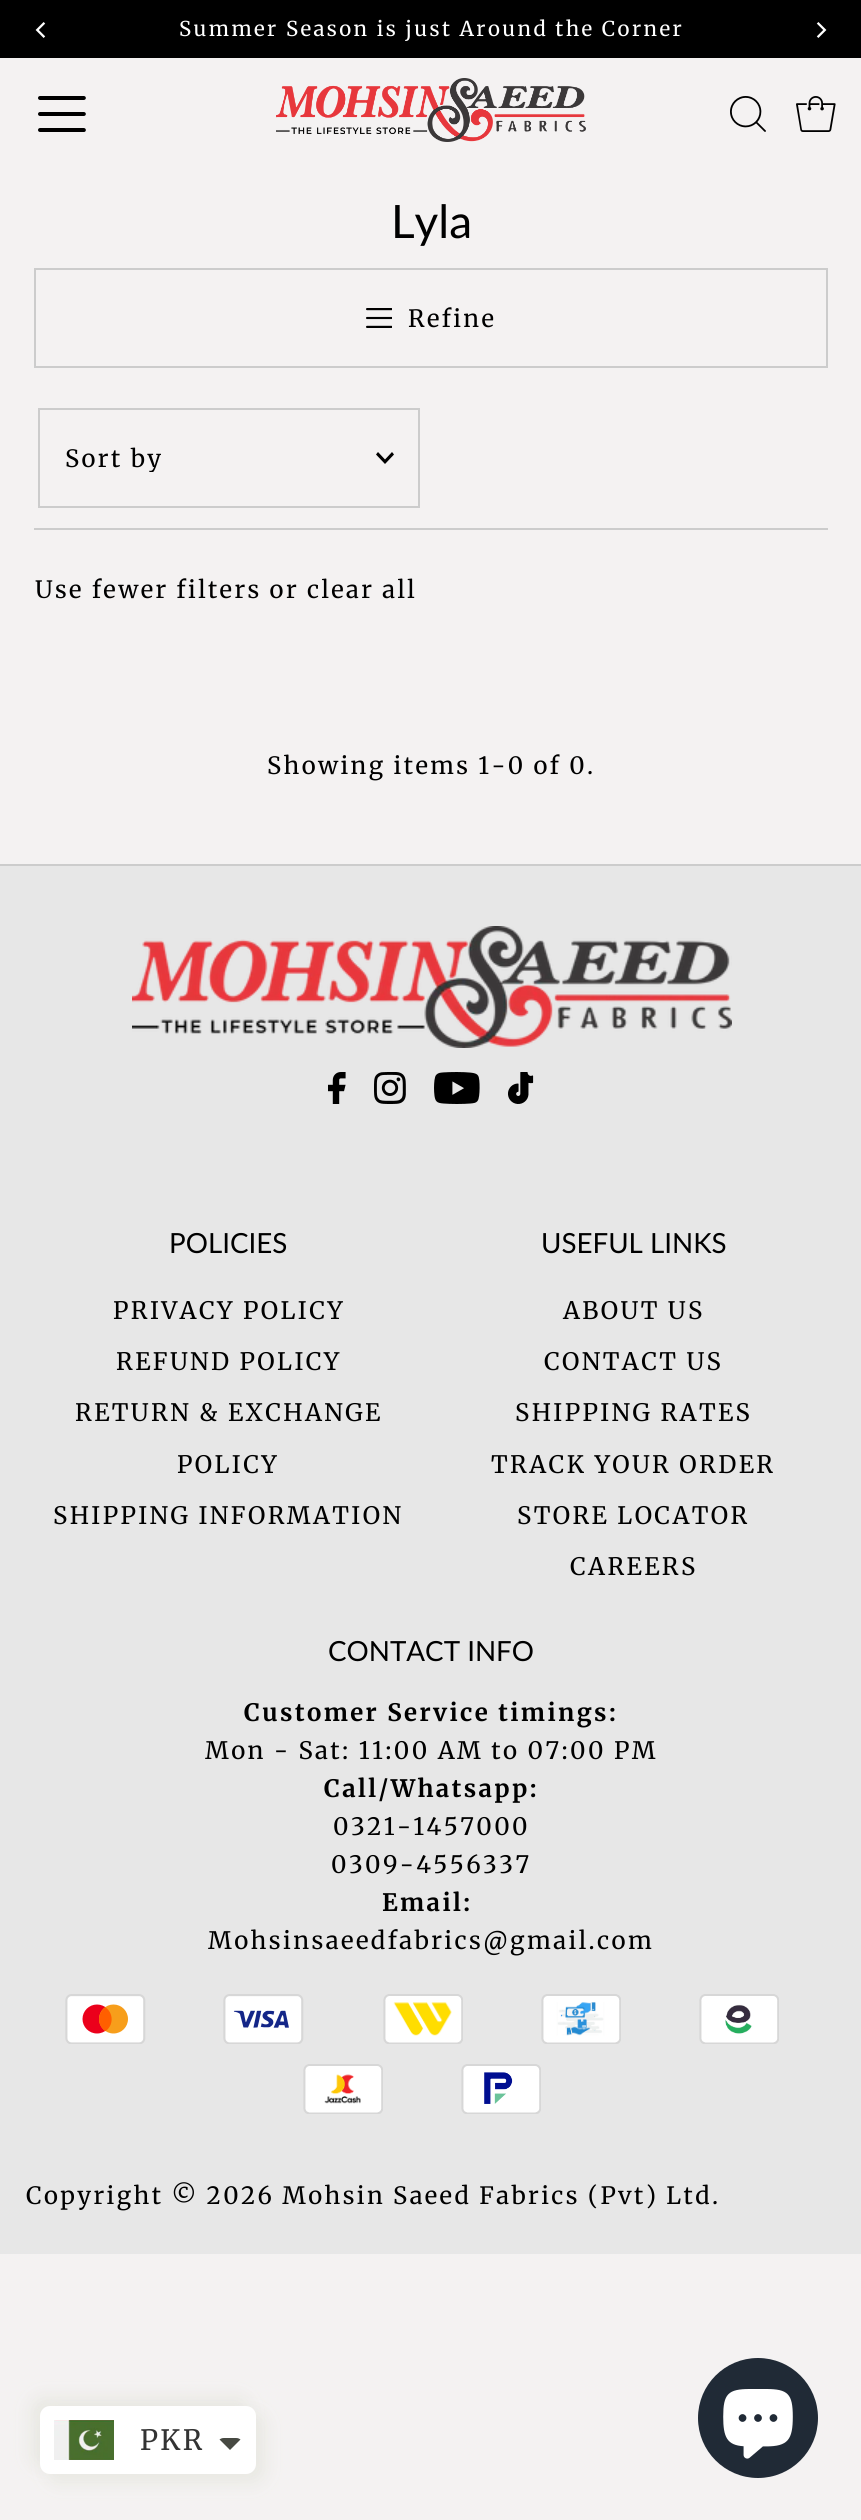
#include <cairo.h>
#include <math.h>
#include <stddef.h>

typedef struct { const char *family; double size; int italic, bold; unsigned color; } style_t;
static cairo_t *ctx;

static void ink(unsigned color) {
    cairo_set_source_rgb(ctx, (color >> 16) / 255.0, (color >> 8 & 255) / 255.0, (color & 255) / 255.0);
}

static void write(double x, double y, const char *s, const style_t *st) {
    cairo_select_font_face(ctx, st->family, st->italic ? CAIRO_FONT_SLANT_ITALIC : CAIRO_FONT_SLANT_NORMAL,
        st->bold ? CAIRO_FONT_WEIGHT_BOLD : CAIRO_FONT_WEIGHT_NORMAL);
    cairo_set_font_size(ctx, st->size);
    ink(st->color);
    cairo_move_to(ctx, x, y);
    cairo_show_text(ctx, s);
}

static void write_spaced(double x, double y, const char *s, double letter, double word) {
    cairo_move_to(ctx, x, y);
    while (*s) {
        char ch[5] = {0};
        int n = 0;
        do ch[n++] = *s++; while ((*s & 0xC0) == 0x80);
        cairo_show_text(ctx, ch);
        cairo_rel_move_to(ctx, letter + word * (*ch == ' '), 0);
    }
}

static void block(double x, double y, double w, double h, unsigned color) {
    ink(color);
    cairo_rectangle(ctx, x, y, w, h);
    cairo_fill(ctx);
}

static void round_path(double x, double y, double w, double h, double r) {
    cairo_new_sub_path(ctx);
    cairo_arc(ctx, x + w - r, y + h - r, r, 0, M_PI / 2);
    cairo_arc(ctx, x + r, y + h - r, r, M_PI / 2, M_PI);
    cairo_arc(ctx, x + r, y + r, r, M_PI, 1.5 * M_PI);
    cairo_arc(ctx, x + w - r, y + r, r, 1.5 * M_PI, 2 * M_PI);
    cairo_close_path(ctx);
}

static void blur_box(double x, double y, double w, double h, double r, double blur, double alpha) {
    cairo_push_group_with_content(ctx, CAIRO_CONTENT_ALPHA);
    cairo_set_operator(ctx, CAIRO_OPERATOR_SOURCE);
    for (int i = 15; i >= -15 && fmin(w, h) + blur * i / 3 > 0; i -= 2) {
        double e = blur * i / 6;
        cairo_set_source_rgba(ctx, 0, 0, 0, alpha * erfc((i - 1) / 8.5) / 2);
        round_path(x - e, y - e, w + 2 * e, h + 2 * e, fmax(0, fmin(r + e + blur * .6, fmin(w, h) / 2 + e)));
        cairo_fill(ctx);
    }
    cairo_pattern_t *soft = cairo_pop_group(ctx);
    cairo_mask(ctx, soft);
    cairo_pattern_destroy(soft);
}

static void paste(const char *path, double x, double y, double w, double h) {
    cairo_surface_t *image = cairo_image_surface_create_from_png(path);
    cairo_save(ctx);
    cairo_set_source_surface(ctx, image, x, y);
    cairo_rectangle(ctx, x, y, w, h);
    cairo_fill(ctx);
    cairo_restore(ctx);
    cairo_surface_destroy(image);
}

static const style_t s1 = {"Lato", 46, 0, 0, 0x000000};
static const style_t s2 = {"Lato", 27.75, 0, 0, 0x000000};

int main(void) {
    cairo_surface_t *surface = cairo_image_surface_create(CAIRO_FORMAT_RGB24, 861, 2520);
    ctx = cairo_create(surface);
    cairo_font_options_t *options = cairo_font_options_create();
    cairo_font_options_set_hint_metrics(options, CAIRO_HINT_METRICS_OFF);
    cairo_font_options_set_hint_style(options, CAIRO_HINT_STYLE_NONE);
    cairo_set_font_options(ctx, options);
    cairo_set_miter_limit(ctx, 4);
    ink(0xf4f2f2);
    cairo_paint(ctx);
    block(0, 0, 861, 58, 0x000000);
    paste("pic1.png", 35, 22, 11, 16);
    cairo_select_font_face(ctx, "Merriweather", CAIRO_FONT_SLANT_NORMAL, CAIRO_FONT_WEIGHT_NORMAL);
    cairo_set_font_size(ctx, 20.4);
    ink(0xffffff);
    write_spaced(179, 36, "Summer Season is just Around the Corner", 2.4, 0);
    paste("pic2.png", 816, 22, 11, 16);
    paste("pic3.png", 38, 96, 48, 36);
    paste("pic4.png", 276, 78, 310, 64);
    paste("pic5.png", 730, 96, 36, 36);
    paste("pic6.png", 796, 96, 40, 36);
    write(391, 238, "Lyla", &s1);
    cairo_rectangle(ctx, 35, 269, 792, 98);
    ink(0xcccccc);
    cairo_stroke(ctx);
    paste("pic7.png", 366, 308, 26, 20);
    cairo_select_font_face(ctx, "Merriweather", CAIRO_FONT_SLANT_NORMAL, CAIRO_FONT_WEIGHT_NORMAL);
    cairo_set_font_size(ctx, 23.8);
    ink(0x000000);
    write_spaced(408, 327, "Refine", 2.4, 0);
    block(34, 528, 794, 2, 0xcccccc);
    cairo_rectangle(ctx, 39, 409, 380, 98);
    cairo_stroke(ctx);
    cairo_save(ctx);
    cairo_rectangle(ctx, 44, 442, 370, 30);
    cairo_clip(ctx);
    ink(0x000000);
    write_spaced(65, 467, "Sort by", 2.4, 0);
    cairo_restore(ctx);
    ink(0x000000);
    cairo_new_path(ctx);
    cairo_move_to(ctx, 392, 452);
    cairo_line_to(ctx, 385, 459.5);
    cairo_line_to(ctx, 378, 452);
    cairo_line_to(ctx, 376, 454.5);
    cairo_line_to(ctx, 385, 464);
    cairo_line_to(ctx, 394, 454.5);
    cairo_close_path(ctx);
    cairo_fill(ctx);
    write_spaced(35, 598, "Use fewer filters or clear all", 2.4, 0);
    write_spaced(267, 774, "Showing items 1-0 of 0.", 2.4, 0);
    block(0, 866, 861, 1388, 0xe7e7e7);
    block(0, 864, 861, 2, 0xcccccc);
    paste("pic8.png", 132, 926, 600, 122);
    paste("pic9.png", 328, 1072, 18, 32);
    paste("pic10.png", 374, 1072, 32, 32);
    paste("pic11.png", 434, 1072, 46, 32);
    paste("pic12.png", 508, 1072, 26, 32);
    write(169, 1253, "POLICIES", &s2);
    cairo_select_font_face(ctx, "Merriweather", CAIRO_FONT_SLANT_NORMAL, CAIRO_FONT_WEIGHT_NORMAL);
    cairo_set_font_size(ctx, 24);
    write_spaced(113, 1319, "PRIVACY POLICY", 2.4, 0);
    write_spaced(116, 1370, "REFUND POLICY", 2.4, 0);
    write_spaced(75, 1421, "RETURN & EXCHANGE", 2.4, 0);
    write_spaced(177, 1473, "POLICY", 2.4, 0);
    write_spaced(53, 1524, "SHIPPING INFORMATION", 2.4, 0);
    write(541, 1253, "USEFUL LINKS", &s2);
    cairo_select_font_face(ctx, "Merriweather", CAIRO_FONT_SLANT_NORMAL, CAIRO_FONT_WEIGHT_NORMAL);
    cairo_set_font_size(ctx, 24);
    write_spaced(563, 1319, "ABOUT US", 2.4, 0);
    write_spaced(544, 1370, "CONTACT US", 2.4, 0);
    write_spaced(515, 1421, "SHIPPING RATES", 2.4, 0);
    write_spaced(491, 1473, "TRACK YOUR ORDER", 2.4, 0);
    write_spaced(517, 1524, "STORE LOCATOR", 2.4, 0);
    write_spaced(570, 1575, "CAREERS", 2.4, 0);
    write(328, 1661, "CONTACT INFO", &s2);
    cairo_select_font_face(ctx, "Merriweather", CAIRO_FONT_SLANT_NORMAL, CAIRO_FONT_WEIGHT_BOLD);
    cairo_set_font_size(ctx, 24);
    write_spaced(244, 1721, "Customer Service timings:", 2.4, 0);
    cairo_select_font_face(ctx, "Merriweather", CAIRO_FONT_SLANT_NORMAL, CAIRO_FONT_WEIGHT_NORMAL);
    write_spaced(205, 1759, "Mon - Sat: 11:00 AM to 07:00 PM", 2.4, 0);
    cairo_select_font_face(ctx, "Merriweather", CAIRO_FONT_SLANT_NORMAL, CAIRO_FONT_WEIGHT_BOLD);
    write_spaced(324, 1797, "Call/Whatsapp:", 2.4, 0);
    cairo_select_font_face(ctx, "Merriweather", CAIRO_FONT_SLANT_NORMAL, CAIRO_FONT_WEIGHT_NORMAL);
    write_spaced(333, 1835, "0321-1457000", 2.4, 0);
    write_spaced(331, 1873, "0309-4556337", 2.4, 0);
    cairo_select_font_face(ctx, "Merriweather", CAIRO_FONT_SLANT_NORMAL, CAIRO_FONT_WEIGHT_BOLD);
    write_spaced(382, 1911, "Email:", 2.4, 0);
    cairo_select_font_face(ctx, "Merriweather", CAIRO_FONT_SLANT_NORMAL, CAIRO_FONT_WEIGHT_NORMAL);
    write_spaced(208, 1949, "Mohsinsaeedfabrics@gmail.com", 2.4, 0);
    paste("pic13.png", 65, 1994, 81, 50);
    paste("pic14.png", 223, 1994, 81, 50);
    paste("pic15.png", 383, 1994, 80, 50);
    paste("pic16.png", 541, 1994, 80, 50);
    paste("pic17.png", 699, 1994, 80, 50);
    paste("pic18.png", 303, 2064, 80, 50);
    paste("pic19.png", 461, 2064, 80, 50);
    cairo_set_font_size(ctx, 23.8);
    write_spaced(26, 2204, "Copyright © 2026 Mohsin Saeed Fabrics (Pvt) Ltd.", 2.4, 0);
    ink(0xe8e8e2);
    blur_box(32, 2398, 216, 68, 10, 9, 1);
    blur_box(48, 2414, 216, 68, 10, 9, 1);
    ink(0xffffff);
    round_path(40, 2406, 216, 68, 10);
    cairo_fill(ctx);
    paste("pic20.png", 54, 2420, 60, 40);
    cairo_set_font_size(ctx, 28);
    ink(0x333333);
    write_spaced(140, 2450, "PKR", 2.4, 0);
    ink(0x474942);
    cairo_new_path(ctx);
    cairo_move_to(ctx, 224, 2438);
    cairo_curve_to(ctx, 222, 2438, 221, 2438.5, 219.5, 2439.5);
    cairo_line_to(ctx, 230, 2450);
    cairo_line_to(ctx, 240.5, 2439.5);
    cairo_curve_to(ctx, 239, 2438.5, 238, 2438, 236, 2438);
    cairo_close_path(ctx);
    cairo_fill(ctx);
    ink(0x202a36);
    cairo_arc(ctx, 758, 2418, 60, 0, 2 * M_PI);
    cairo_fill(ctx);
    paste("pic21.png", 723, 2389, 70, 70);
    cairo_surface_write_to_png(surface, "screenshot.png");
    cairo_font_options_destroy(options);
    cairo_destroy(ctx);
    cairo_surface_destroy(surface);
    return 0;
}
